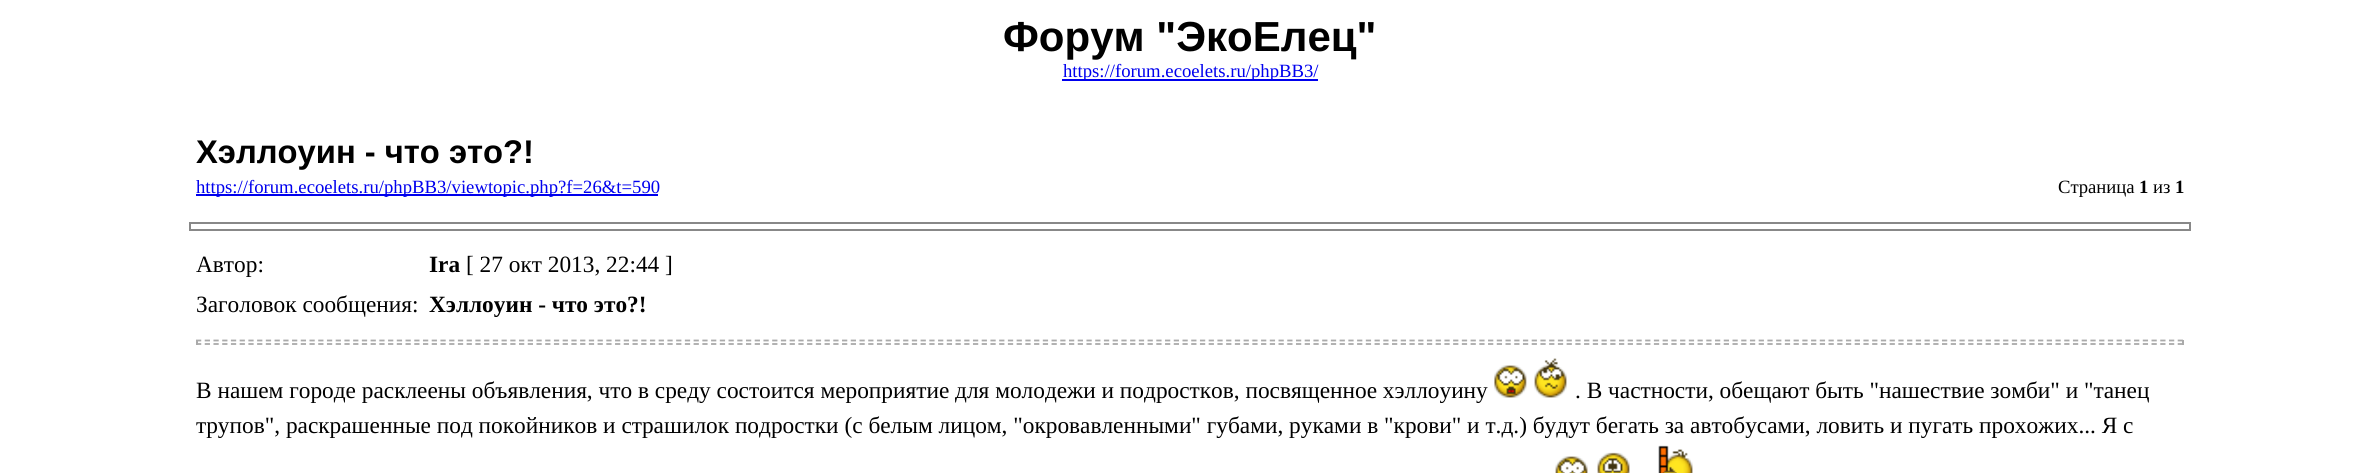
#include <cairo.h>
#include <math.h>
#include <stddef.h>

typedef struct { const char *family; double size; int italic, bold; unsigned color; } style_t;
static cairo_t *ctx;

static void ink(unsigned color) {
    cairo_set_source_rgb(ctx, (color >> 16) / 255.0, (color >> 8 & 255) / 255.0, (color & 255) / 255.0);
}

static void write(double x, double y, const char *s, const style_t *st) {
    cairo_select_font_face(ctx, st->family, st->italic ? CAIRO_FONT_SLANT_ITALIC : CAIRO_FONT_SLANT_NORMAL,
        st->bold ? CAIRO_FONT_WEIGHT_BOLD : CAIRO_FONT_WEIGHT_NORMAL);
    cairo_set_font_size(ctx, st->size);
    ink(st->color);
    cairo_move_to(ctx, x, y);
    cairo_show_text(ctx, s);
}

static void block(double x, double y, double w, double h, unsigned color) {
    ink(color);
    cairo_rectangle(ctx, x, y, w, h);
    cairo_fill(ctx);
}

static void paste(const char *path, double x, double y, double w, double h) {
    cairo_surface_t *image = cairo_image_surface_create_from_png(path);
    cairo_save(ctx);
    cairo_set_source_surface(ctx, image, x, y);
    cairo_rectangle(ctx, x, y, w, h);
    cairo_fill(ctx);
    cairo_restore(ctx);
    cairo_surface_destroy(image);
}

static const style_t s1 = {"Liberation Sans", 42, 0, 1, 0x000000};
static const style_t s2 = {"Liberation Serif", 18.7, 0, 0, 0x0000ee};
static const style_t s3 = {"Liberation Sans", 32.75, 0, 1, 0x000000};
static const style_t s4 = {"Liberation Serif", 18.7, 0, 0, 0x000000};
static const style_t s5 = {"Liberation Serif", 18.7, 0, 1, 0x000000};
static const style_t s6 = {"Liberation Serif", 23.33, 0, 0, 0x000000};
static const style_t s7 = {"Liberation Serif", 23.33, 0, 1, 0x000000};

int main(void) {
    cairo_surface_t *surface = cairo_image_surface_create(CAIRO_FORMAT_RGB24, 2380, 473);
    ctx = cairo_create(surface);
    cairo_font_options_t *options = cairo_font_options_create();
    cairo_font_options_set_hint_metrics(options, CAIRO_HINT_METRICS_OFF);
    cairo_font_options_set_hint_style(options, CAIRO_HINT_STYLE_NONE);
    cairo_set_font_options(ctx, options);
    cairo_set_miter_limit(ctx, 4);
    ink(0xffffff);
    cairo_paint(ctx);
    write(1003, 51, "Форум \"ЭкоЕлец\"", &s1);
    block(1062, 79, 256, 2, 0x0000ee);
    write(1063, 77, "https://forum.ecoelets.ru/phpBB3/", &s2);
    write(196, 163, "Хэллоуин - что это?!", &s3);
    block(196, 194, 462, 2, 0x0000ee);
    write(196, 193, "https://forum.ecoelets.ru/phpBB3/viewtopic.php?f=26&t=590", &s2);
    write(2058, 193, "Страница", &s4);
    write(2139, 193, "1", &s5);
    write(2153, 193, "из", &s4);
    write(2175, 193, "1", &s5);
    cairo_rectangle(ctx, 190, 223, 2000, 7);
    ink(0x888888);
    cairo_stroke(ctx);
    write(196, 272, "Автор:", &s6);
    write(429, 272, "Ira", &s7);
    write(466, 272, "[ 27 окт 2013, 22:44 ]", &s6);
    write(196, 312, "Заголовок сообщения:", &s6);
    write(429, 312, "Хэллоуин - что это?!", &s7);
    cairo_new_path(ctx);
    cairo_move_to(ctx, 196, 340.5);
    cairo_line_to(ctx, 2184, 340.5);
    ink(0xaaaaaa);
    cairo_set_line_width(ctx, 1.8);
    cairo_set_dash(ctx, (double[]){5.25, 3.48}, 2, 0);
    cairo_stroke(ctx);
    block(2182, 340, 2, 5, 0xaaaaaa);
    cairo_new_path(ctx);
    cairo_move_to(ctx, 196, 344);
    cairo_line_to(ctx, 2184, 344);
    cairo_stroke(ctx);
    block(196, 340, 2, 5, 0xaaaaaa);
    write(196, 398, "В нашем городе расклеены объявления, что в среду состоится мероприятие для молодежи и подростков, посвященное хэллоуину", &s6);
    paste("pic1.png", 1494, 365, 33, 33);
    paste("pic2.png", 1534, 358, 33, 40);
    write(1575, 398, ". В частности, обещают быть \"нашествие зомби\" и \"танец", &s6);
    write(196, 433, "трупов\", раскрашенные под покойников и страшилок подростки (с белым лицом, \"окровавленными\" губами, руками в \"крови\" и т.д.) будут бегать за автобусами, ловить и пугать прохожих... Я с", &s6);
    paste("pic3.png", 1555, 456, 33, 17);
    paste("pic4.png", 1597, 452, 33, 21);
    paste("pic5.png", 1658, 445, 35, 28);
    cairo_surface_write_to_png(surface, "screenshot.png");
    cairo_font_options_destroy(options);
    cairo_destroy(ctx);
    cairo_surface_destroy(surface);
    return 0;
}
